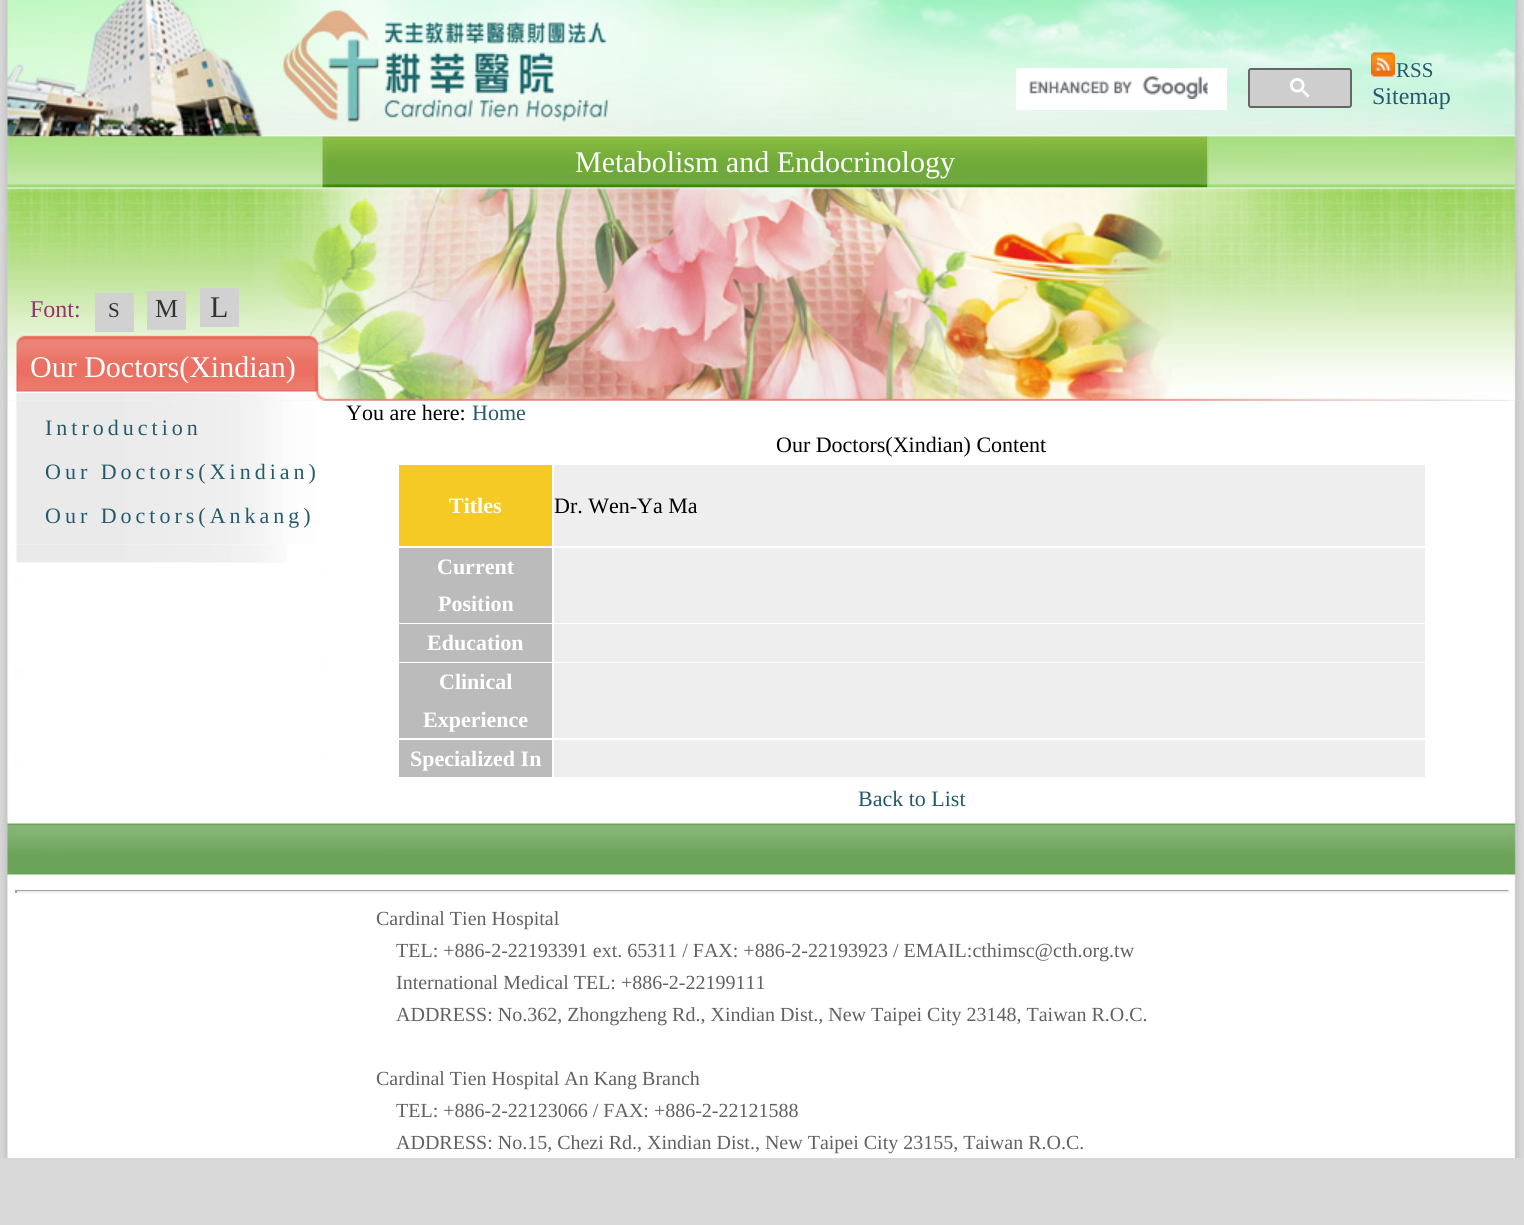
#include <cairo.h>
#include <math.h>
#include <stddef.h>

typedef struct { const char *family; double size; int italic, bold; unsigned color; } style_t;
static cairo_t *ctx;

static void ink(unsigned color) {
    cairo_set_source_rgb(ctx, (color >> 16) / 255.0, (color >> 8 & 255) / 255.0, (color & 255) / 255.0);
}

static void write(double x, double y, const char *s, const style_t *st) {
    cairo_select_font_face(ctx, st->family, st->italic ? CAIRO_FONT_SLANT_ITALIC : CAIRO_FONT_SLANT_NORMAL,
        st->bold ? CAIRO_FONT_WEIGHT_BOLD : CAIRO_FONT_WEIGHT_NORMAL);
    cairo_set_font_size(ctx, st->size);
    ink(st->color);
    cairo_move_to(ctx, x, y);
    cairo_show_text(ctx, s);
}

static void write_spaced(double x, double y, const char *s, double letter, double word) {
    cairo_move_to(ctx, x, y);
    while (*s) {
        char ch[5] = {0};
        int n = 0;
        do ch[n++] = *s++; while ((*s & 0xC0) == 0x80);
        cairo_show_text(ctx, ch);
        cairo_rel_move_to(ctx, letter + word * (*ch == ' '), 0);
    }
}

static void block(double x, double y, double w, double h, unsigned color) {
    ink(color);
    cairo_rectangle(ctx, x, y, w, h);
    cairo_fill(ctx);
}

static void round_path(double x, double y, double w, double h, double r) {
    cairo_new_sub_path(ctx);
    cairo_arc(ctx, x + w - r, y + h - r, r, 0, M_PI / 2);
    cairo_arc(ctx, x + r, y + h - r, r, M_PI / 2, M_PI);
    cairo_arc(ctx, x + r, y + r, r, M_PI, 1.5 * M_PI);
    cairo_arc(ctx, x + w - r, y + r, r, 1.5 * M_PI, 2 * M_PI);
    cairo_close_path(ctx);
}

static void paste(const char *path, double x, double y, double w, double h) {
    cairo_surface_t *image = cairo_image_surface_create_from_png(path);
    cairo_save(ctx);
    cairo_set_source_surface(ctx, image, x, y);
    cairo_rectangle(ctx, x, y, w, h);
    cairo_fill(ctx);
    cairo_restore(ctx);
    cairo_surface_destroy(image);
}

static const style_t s1 = {"Liberation Serif", 21, 0, 0, 0x245a6c};
static const style_t s2 = {"Liberation Serif", 24, 0, 0, 0x245a6c};
static const style_t s3 = {"Liberation Serif", 30, 0, 0, 0xffffff};
static const style_t s4 = {"Liberation Serif", 24, 0, 0, 0x933472};
static const style_t s5 = {"Liberation Serif", 21, 0, 0, 0x333333};
static const style_t s6 = {"Liberation Serif", 26, 0, 0, 0x333333};
static const style_t s7 = {"Liberation Serif", 30, 0, 0, 0x333333};
static const style_t s8 = {"Liberation Serif", 22, 0, 0, 0x000000};
static const style_t s9 = {"Liberation Serif", 22, 0, 0, 0x245a6c};
static const style_t s10 = {"Liberation Serif", 22, 0, 1, 0xffffff};
static const style_t s11 = {"Liberation Serif", 20, 0, 0, 0x616161};

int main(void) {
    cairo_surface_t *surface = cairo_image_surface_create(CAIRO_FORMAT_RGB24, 1524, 1225);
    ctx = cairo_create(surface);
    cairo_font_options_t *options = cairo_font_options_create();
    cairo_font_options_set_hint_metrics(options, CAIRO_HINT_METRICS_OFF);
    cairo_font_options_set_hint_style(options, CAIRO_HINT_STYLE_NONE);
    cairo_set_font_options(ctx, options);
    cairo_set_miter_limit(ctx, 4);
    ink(0xd9d9d9);
    cairo_paint(ctx);
    paste("pic1.png", 0, 0, 1524, 137);
    block(1016, 68, 211, 42, 0xffffff);
    paste("pic2.png", 1029, 76, 179, 23);
    ink(0xcecece);
    round_path(1249, 69, 102, 38, 2);
    cairo_fill_preserve(ctx);
    ink(0x666666);
    cairo_stroke(ctx);
    paste("pic3.png", 1290, 78, 20, 20);
    paste("pic4.png", 1371, 52, 24, 25);
    write(1396, 77, "RSS", &s1);
    write(1372, 104, "Sitemap", &s2);
    paste("pic5.png", 0, 136, 323, 52);
    paste("pic6.png", 322, 136, 886, 52);
    write(575, 172, "Metabolism and Endocrinology", &s3);
    paste("pic7.png", 1207, 136, 314, 52);
    paste("pic8.png", 0, 187, 1524, 146);
    write(30, 317, "Font:", &s4);
    block(95, 293, 39, 39, 0xd1d1d1);
    write(108, 317, "S", &s5);
    block(147, 291, 39, 39, 0xd1d1d1);
    write(155, 317, "M", &s6);
    block(200, 288, 39, 39, 0xd1d1d1);
    write(210, 317, "L", &s7);
    paste("pic9.png", 0, 333, 323, 68);
    write(30, 377, "Our Doctors(Xindian)", &s3);
    paste("pic10.png", 322, 333, 1200, 68);
    block(322, 401, 1187, 418, 0xffffff);
    paste("pic11.png", 0, 400, 323, 419);
    paste("pic12.png", 8, 400, 315, 145);
    cairo_set_font_size(ctx, 22);
    ink(0x245a6c);
    write_spaced(45, 435, "Introduction", 4, 0);
    write_spaced(45, 479, "Our Doctors(Xindian)", 4, 0);
    write_spaced(45, 523, "Our Doctors(Ankang)", 4, 0);
    paste("pic13.png", 16, 544, 271, 19);
    write(346, 420, "You are here:", &s8);
    write(472, 420, "Home", &s9);
    write(776, 452, "Our Doctors(Xindian) Content", &s8);
    block(399, 465, 153, 81, 0xf5ca25);
    write(449, 513, "Titles", &s10);
    block(554, 465, 871, 81, 0xeeeeee);
    write(554, 513, "Dr. Wen-Ya Ma", &s8);
    block(399, 548, 153, 75, 0xbbbbbb);
    write(437, 574, "Current", &s10);
    write(438, 611, "Position", &s10);
    block(554, 548, 871, 75, 0xeeeeee);
    block(399, 624, 153, 38, 0xbbbbbb);
    write(427, 650, "Education", &s10);
    block(554, 624, 871, 38, 0xeeeeee);
    block(399, 663, 153, 75, 0xbbbbbb);
    write(439, 689, "Clinical", &s10);
    write(423, 727, "Experience", &s10);
    block(554, 663, 871, 75, 0xeeeeee);
    block(399, 740, 153, 37, 0xbbbbbb);
    write(410, 766, "Specialized In", &s10);
    block(554, 740, 871, 37, 0xeeeeee);
    write(858, 806, "Back to List", &s9);
    paste("pic14.png", 1509, 400, 15, 419);
    block(8, 819, 1506, 339, 0xffffff);
    paste("pic15.png", 0, 819, 15, 60);
    paste("pic16.png", 15, 823, 1494, 52);
    paste("pic17.png", 1509, 819, 15, 60);
    paste("pic18.png", 0, 879, 8, 279);
    block(15, 890, 1494, 1, 0x9f9f9f);
    block(1508, 890, 2, 3, 0xeeeeee);
    block(15, 891, 1494, 2, 0xeeeeee);
    block(15, 890, 2, 3, 0x9f9f9f);
    write(376, 925, "Cardinal Tien Hospital", &s11);
    write(396, 957, "TEL: +886-2-22193391 ext. 65311 / FAX: +886-2-22193923 / EMAIL:cthimsc@cth.org.tw", &s11);
    write(396, 989, "International Medical TEL: +886-2-22199111", &s11);
    write(396, 1021, "ADDRESS: No.362, Zhongzheng Rd., Xindian Dist., New Taipei City 23148, Taiwan R.O.C.", &s11);
    write(376, 1085, "Cardinal Tien Hospital An Kang Branch", &s11);
    write(396, 1117, "TEL: +886-2-22123066 / FAX: +886-2-22121588", &s11);
    write(396, 1149, "ADDRESS: No.15, Chezi Rd., Xindian Dist., New Taipei City 23155, Taiwan R.O.C.", &s11);
    paste("pic19.png", 1514, 879, 10, 279);
    cairo_surface_write_to_png(surface, "screenshot.png");
    cairo_font_options_destroy(options);
    cairo_destroy(ctx);
    cairo_surface_destroy(surface);
    return 0;
}
